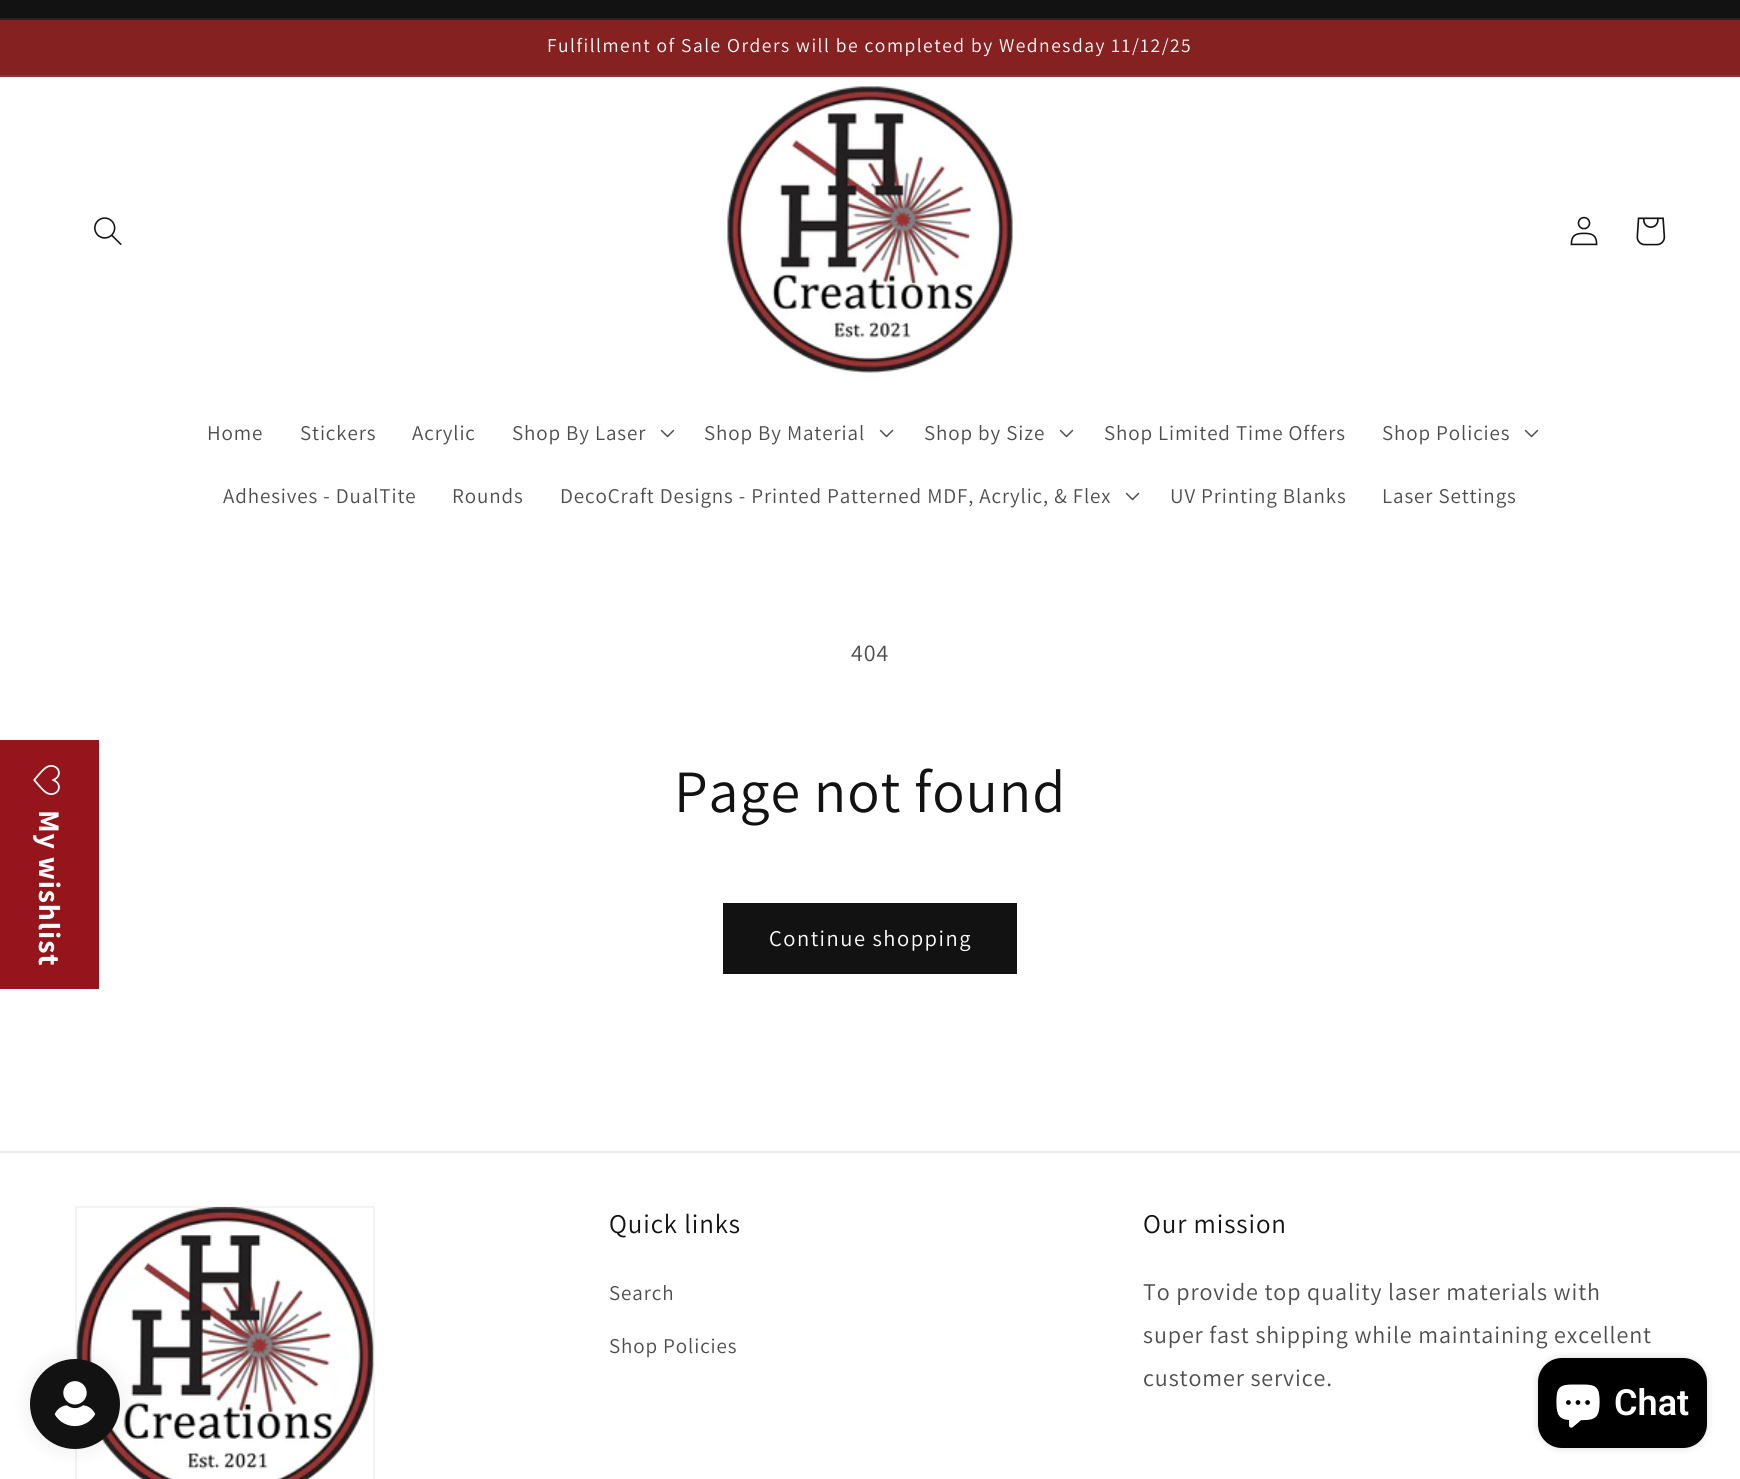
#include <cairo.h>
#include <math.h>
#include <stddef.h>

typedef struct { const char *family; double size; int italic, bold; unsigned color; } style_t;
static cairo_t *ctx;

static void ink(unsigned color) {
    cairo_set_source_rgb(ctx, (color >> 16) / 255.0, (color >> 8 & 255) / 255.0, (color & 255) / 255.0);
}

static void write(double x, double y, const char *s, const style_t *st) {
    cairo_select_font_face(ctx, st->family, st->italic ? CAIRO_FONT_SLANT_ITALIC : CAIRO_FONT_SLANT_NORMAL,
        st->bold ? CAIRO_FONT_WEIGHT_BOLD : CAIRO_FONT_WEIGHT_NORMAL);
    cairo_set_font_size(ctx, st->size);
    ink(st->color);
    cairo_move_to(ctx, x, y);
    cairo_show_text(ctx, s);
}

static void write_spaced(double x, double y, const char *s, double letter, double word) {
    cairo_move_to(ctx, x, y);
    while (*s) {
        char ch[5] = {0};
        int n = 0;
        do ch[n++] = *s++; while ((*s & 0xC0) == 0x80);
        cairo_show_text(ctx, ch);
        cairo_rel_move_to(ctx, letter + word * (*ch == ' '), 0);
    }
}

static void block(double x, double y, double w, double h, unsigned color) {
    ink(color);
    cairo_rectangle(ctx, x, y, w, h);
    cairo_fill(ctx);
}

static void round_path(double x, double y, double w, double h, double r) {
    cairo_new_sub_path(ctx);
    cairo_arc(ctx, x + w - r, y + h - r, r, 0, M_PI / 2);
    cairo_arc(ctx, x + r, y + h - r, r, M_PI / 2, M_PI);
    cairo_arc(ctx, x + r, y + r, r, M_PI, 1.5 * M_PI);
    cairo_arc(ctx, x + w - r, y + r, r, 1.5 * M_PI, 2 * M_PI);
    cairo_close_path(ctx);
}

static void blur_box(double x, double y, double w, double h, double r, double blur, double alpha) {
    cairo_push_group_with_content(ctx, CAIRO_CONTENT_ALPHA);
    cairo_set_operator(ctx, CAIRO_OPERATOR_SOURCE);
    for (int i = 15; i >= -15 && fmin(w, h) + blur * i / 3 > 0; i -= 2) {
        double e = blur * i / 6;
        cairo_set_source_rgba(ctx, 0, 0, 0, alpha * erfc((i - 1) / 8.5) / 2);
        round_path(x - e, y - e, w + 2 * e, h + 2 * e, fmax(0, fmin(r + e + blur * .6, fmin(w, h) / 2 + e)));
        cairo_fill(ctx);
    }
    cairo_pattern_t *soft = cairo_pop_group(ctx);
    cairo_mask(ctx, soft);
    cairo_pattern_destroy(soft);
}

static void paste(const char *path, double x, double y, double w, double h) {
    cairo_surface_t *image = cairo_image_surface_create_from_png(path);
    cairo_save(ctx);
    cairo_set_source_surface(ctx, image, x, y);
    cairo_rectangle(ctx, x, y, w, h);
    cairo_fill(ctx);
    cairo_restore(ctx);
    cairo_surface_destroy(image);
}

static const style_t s1 = {"Roboto SemiBold", 36, 0, 0, 0xffffff};

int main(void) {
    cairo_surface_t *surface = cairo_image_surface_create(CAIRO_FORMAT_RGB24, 1740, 1479);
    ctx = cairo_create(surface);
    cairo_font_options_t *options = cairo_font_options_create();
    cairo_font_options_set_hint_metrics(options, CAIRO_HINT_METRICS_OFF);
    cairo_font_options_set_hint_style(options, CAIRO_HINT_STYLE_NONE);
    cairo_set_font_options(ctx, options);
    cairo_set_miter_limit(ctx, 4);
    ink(0xffffff);
    cairo_paint(ctx);
    block(0, 0, 1740, 18, 0x121212);
    block(0, 18, 1740, 2, 0x252525);
    block(0, 20, 1740, 55, 0x852121);
    block(0, 75, 1740, 2, 0x8f3333);
    cairo_select_font_face(ctx, "Assistant", CAIRO_FONT_SLANT_NORMAL, CAIRO_FONT_WEIGHT_NORMAL);
    cairo_set_font_size(ctx, 19.5);
    ink(0xffffff);
    write_spaced(547, 52, "Fulfillment of Sale Orders will be completed by Wednesday 11/12/25", 1.5, 0);
    paste("pic1.png", 94, 217, 28, 28);
    paste("pic2.png", 727, 86, 286, 287);
    paste("pic3.png", 1570, 216, 28, 30);
    paste("pic4.png", 1636, 217, 30, 29);
    cairo_set_font_size(ctx, 21);
    ink(0x4d4d4d);
    write_spaced(207, 440, "Home", 0.9, 0);
    write_spaced(300, 440, "Stickers", 0.9, 0);
    write_spaced(412, 440, "Acrylic", 0.9, 0);
    write_spaced(512, 440, "Shop By Laser", 0.9, 0);
    paste("pic5.png", 660, 429, 15, 9);
    write_spaced(704, 440, "Shop By Material", 0.9, 0);
    paste("pic5.png", 879, 429, 15, 9);
    write_spaced(924, 440, "Shop by Size", 0.9, 0);
    paste("pic5.png", 1059, 429, 15, 9);
    write_spaced(1104, 440, "Shop Limited Time Offers", 0.9, 0);
    write_spaced(1382, 440, "Shop Policies", 0.9, 0);
    paste("pic5.png", 1524, 429, 15, 9);
    write_spaced(223, 503, "Adhesives - DualTite", 0.9, 0);
    write_spaced(452, 503, "Rounds", 0.9, 0);
    write_spaced(560, 503, "DecoCraft Designs - Printed Patterned MDF, Acrylic, & Flex", 0.9, 0);
    paste("pic5.png", 1125, 492, 15, 9);
    write_spaced(1170, 503, "UV Printing Blanks", 0.9, 0);
    write_spaced(1382, 503, "Laser Settings", 0.9, 0);
    block(0, 740, 99, 249, 0x96141b);
    paste("pic6.png", 33, 765, 27, 30);
    cairo_select_font_face(ctx, "Assistant", CAIRO_FONT_SLANT_NORMAL, CAIRO_FONT_WEIGHT_BOLD);
    cairo_set_font_size(ctx, 30);
    ink(0xffffff);
    cairo_save(ctx);
    cairo_translate(ctx, 39, 810);
    cairo_rotate(ctx, 90 * M_PI / 180);
    write_spaced(0, 0, "My wishlist", 0.9, 0);
    cairo_restore(ctx);
    cairo_select_font_face(ctx, "Assistant", CAIRO_FONT_SLANT_NORMAL, CAIRO_FONT_WEIGHT_NORMAL);
    cairo_set_font_size(ctx, 24);
    ink(0x4d4d4d);
    write_spaced(851, 661, "404", 0.9, 0);
    cairo_set_font_size(ctx, 60);
    ink(0x121212);
    write_spaced(674, 812, "Page not found", 0.9, 0);
    block(723, 903, 294, 71, 0x121212);
    cairo_set_font_size(ctx, 22.5);
    ink(0xffffff);
    write_spaced(769, 946, "Continue shopping", 1.5, 0);
    cairo_rectangle(ctx, 76, 1207, 298, 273);
    ink(0xf3f3f3);
    cairo_stroke(ctx);
    paste("pic8.png", 76, 1207, 298, 272);
    ink(0x000000);
    blur_box(30, 1359, 90, 90, 45, 11, 0.08);
    ink(0x121212);
    cairo_arc(ctx, 75, 1404, 45, 0, 2 * M_PI);
    cairo_fill(ctx);
    paste("pic7.png", 54, 1381, 42, 46);
    block(0, 1151, 1740, 2, 0xececec);
    cairo_set_font_size(ctx, 27);
    ink(0x121212);
    write_spaced(609, 1233, "Quick links", 0.9, 0);
    cairo_set_font_size(ctx, 21);
    ink(0x4d4d4d);
    write_spaced(609, 1300, "Search", 0.9, 0);
    write_spaced(609, 1353, "Shop Policies", 0.9, 0);
    cairo_set_font_size(ctx, 27);
    ink(0x121212);
    write_spaced(1143, 1233, "Our mission", 0.9, 0);
    cairo_set_font_size(ctx, 24);
    ink(0x4d4d4d);
    write_spaced(1143, 1300, "To provide top quality laser materials with", 0.9, 0);
    write_spaced(1143, 1343, "super fast shipping while maintaining excellent", 0.9, 0);
    write_spaced(1143, 1386, "customer service.", 0.9, 0);
    ink(0x000000);
    blur_box(1538, 1358, 169, 90, 24, 4, 0.15);
    ink(0x000000);
    round_path(1538, 1358, 169, 90, 24);
    cairo_fill(ctx);
    paste("pic9.png", 1556, 1384, 44, 44);
    write(1614, 1415, "Chat", &s1);
    cairo_surface_write_to_png(surface, "screenshot.png");
    cairo_font_options_destroy(options);
    cairo_destroy(ctx);
    cairo_surface_destroy(surface);
    return 0;
}
